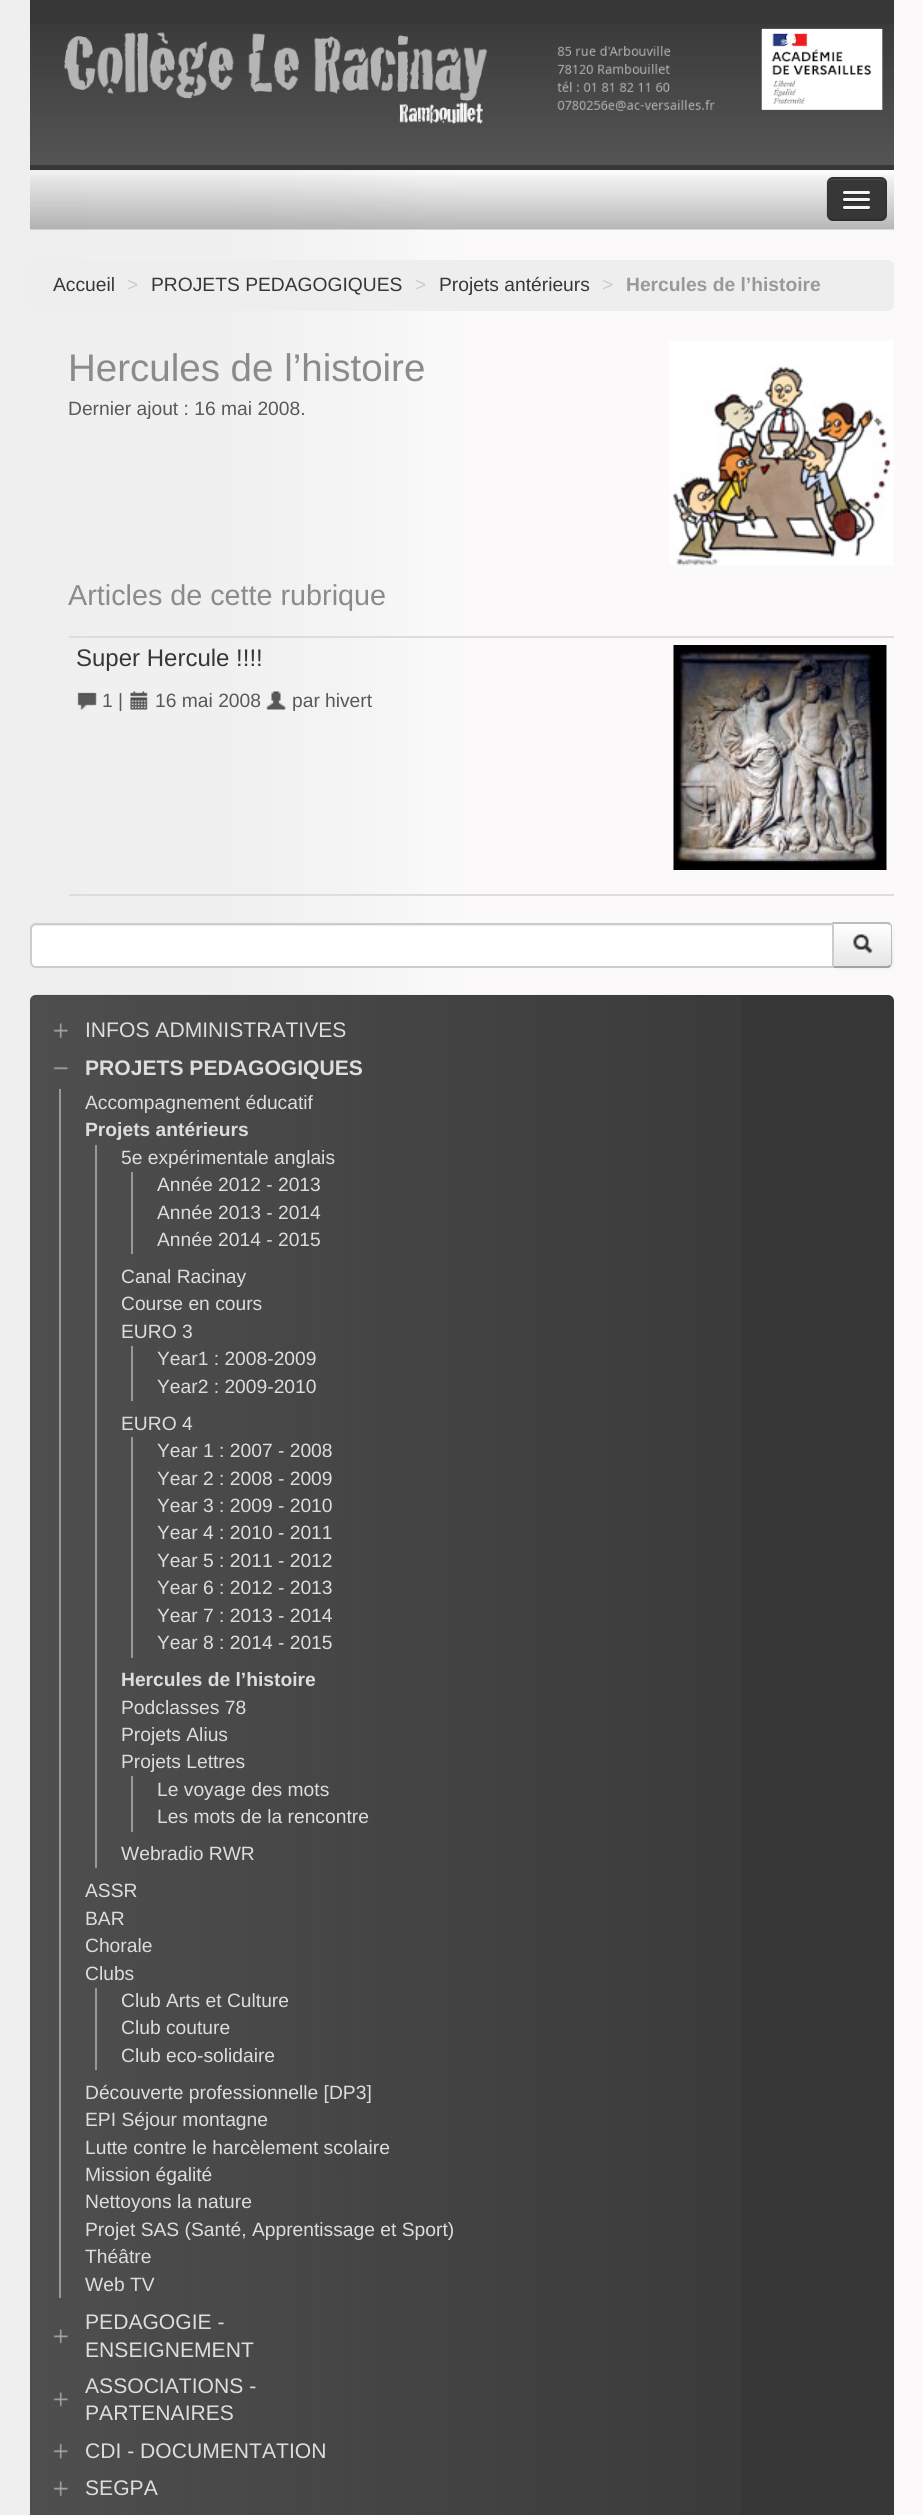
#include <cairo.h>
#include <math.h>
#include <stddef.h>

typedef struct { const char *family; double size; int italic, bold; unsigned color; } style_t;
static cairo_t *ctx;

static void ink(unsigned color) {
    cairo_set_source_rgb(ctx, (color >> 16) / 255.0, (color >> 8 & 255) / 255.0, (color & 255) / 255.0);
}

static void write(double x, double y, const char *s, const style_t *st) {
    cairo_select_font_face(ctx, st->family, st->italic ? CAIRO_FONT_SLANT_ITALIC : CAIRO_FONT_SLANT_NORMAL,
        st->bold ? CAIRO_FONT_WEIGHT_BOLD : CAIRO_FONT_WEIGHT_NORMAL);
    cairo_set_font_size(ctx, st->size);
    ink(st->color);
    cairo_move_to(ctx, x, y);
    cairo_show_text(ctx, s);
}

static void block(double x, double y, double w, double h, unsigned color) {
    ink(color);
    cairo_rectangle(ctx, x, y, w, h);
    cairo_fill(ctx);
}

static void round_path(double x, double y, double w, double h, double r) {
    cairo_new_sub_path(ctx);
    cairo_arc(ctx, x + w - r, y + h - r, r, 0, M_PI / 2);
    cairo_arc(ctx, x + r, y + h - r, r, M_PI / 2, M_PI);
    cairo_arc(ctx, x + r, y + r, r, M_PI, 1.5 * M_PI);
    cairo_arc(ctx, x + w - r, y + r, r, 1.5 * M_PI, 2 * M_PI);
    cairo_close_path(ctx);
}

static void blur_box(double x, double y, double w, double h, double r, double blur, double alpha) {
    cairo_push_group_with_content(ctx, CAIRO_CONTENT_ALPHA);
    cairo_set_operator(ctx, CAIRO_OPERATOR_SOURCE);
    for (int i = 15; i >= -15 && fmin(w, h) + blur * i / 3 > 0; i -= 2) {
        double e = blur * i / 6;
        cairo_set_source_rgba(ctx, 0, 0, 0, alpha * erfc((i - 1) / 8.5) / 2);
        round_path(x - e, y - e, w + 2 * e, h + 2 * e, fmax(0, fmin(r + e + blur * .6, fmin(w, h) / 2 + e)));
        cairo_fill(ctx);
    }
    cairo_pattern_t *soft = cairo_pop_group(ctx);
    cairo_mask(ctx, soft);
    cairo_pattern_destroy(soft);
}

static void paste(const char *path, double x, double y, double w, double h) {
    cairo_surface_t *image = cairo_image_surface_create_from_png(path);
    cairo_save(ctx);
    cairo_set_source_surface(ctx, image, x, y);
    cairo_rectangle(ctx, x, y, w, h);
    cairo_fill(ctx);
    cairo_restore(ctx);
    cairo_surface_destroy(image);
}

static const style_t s1 = {"Liberation Sans", 19.25, 0, 0, 0x373737};
static const style_t s2 = {"Liberation Sans", 19.25, 0, 0, 0xcccccc};
static const style_t s3 = {"Liberation Sans", 19.25, 0, 1, 0x999999};
static const style_t s4 = {"Liberation Sans", 38.5, 0, 0, 0x8b8b8b};
static const style_t s5 = {"Liberation Sans", 19.25, 0, 0, 0x595959};
static const style_t s6 = {"Liberation Sans", 28.75, 0, 0, 0x8b8b8b};
static const style_t s7 = {"Liberation Sans", 24, 0, 0, 0x373737};
static const style_t s8 = {"Liberation Sans", 21.1, 0, 0, 0xdddddd};
static const style_t s9 = {"Liberation Sans", 21.1, 0, 1, 0xdddddd};
static const style_t s10 = {"Liberation Sans", 19.25, 0, 0, 0xdddddd};
static const style_t s11 = {"Liberation Sans", 19.25, 0, 1, 0xdddddd};

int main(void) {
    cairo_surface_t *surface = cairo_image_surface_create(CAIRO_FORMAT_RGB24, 923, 2515);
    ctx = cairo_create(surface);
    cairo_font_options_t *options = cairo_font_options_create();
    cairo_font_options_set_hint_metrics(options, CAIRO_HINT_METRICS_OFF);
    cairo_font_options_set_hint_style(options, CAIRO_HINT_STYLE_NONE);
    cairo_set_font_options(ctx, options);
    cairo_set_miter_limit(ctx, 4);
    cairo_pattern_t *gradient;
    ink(0xffffff);
    cairo_paint(ctx);
    paste("pic1.png", 0, 0, 923, 2515);
    block(30, 0, 864, 170, 0x373737);
    paste("pic2.png", 30, 24, 864, 141);
    paste("pic3.png", 64, 28, 819, 96);
    paste("pic4.png", 30, 175, 864, 55);
    cairo_set_source_rgba(ctx, 1, 1, 1, 0.07);
    cairo_new_path(ctx);
    cairo_move_to(ctx, 827, 217);
    cairo_curve_to(ctx, 828, 220, 830, 222, 833, 222);
    cairo_line_to(ctx, 881, 222);
    cairo_curve_to(ctx, 884, 222, 887, 219, 887, 216);
    cairo_line_to(ctx, 887, 185);
    cairo_line_to(ctx, 886, 183);
    cairo_line_to(ctx, 886, 209);
    cairo_curve_to(ctx, 886, 221, 884, 220, 872, 220);
    cairo_line_to(ctx, 840, 220);
    cairo_curve_to(ctx, 836, 220, 829, 222, 827, 217);
    cairo_close_path(ctx);
    cairo_fill(ctx);
    ink(0x373737);
    round_path(827, 177, 60, 44, 6);
    cairo_fill(ctx);
    ink(0x4b4b4b);
    cairo_new_path(ctx);
    cairo_move_to(ctx, 832, 180);
    cairo_line_to(ctx, 880, 180);
    cairo_curve_to(ctx, 883, 180, 885, 182, 885, 184);
    cairo_curve_to(ctx, 885, 181, 883, 179, 880, 179);
    cairo_line_to(ctx, 833, 179);
    cairo_curve_to(ctx, 830, 179, 828, 181, 828, 184);
    cairo_curve_to(ctx, 828, 182, 830, 180, 832, 180);
    cairo_close_path(ctx);
    cairo_fill(ctx);
    cairo_new_path(ctx);
    cairo_move_to(ctx, 884, 218);
    cairo_curve_to(ctx, 883, 219, 882, 220, 880.5, 220);
    cairo_line_to(ctx, 832.5, 220);
    cairo_curve_to(ctx, 831, 220, 830, 219, 829, 218);
    cairo_set_source_rgba(ctx, 0, 0, 0, 0.25);
    cairo_set_line_width(ctx, 1.5);
    cairo_stroke(ctx);
    cairo_new_path(ctx);
    cairo_move_to(ctx, 829, 218);
    cairo_curve_to(ctx, 828, 217, 827, 216, 827, 214.5);
    cairo_line_to(ctx, 827, 183);
    cairo_curve_to(ctx, 827, 181.5, 828, 180.5, 829, 179.5);
    cairo_curve_to(ctx, 830, 178.5, 831, 178, 832.5, 178);
    cairo_line_to(ctx, 880.5, 178);
    cairo_curve_to(ctx, 882, 178, 883, 178.5, 884, 179.5);
    cairo_curve_to(ctx, 885, 180.5, 886, 181.5, 886, 183);
    cairo_line_to(ctx, 886, 214.5);
    cairo_curve_to(ctx, 886, 216, 885, 217, 884, 218);
    cairo_set_source_rgba(ctx, 0, 0, 0, 0.1);
    cairo_stroke(ctx);
    ink(0x292929);
    cairo_new_path(ctx);
    cairo_move_to(ctx, 843, 193);
    cairo_curve_to(ctx, 841.5, 196, 848.5, 195, 848.5, 195);
    cairo_line_to(ctx, 864.5, 195);
    cairo_curve_to(ctx, 864.5, 195, 871.5, 196, 870, 193);
    cairo_curve_to(ctx, 869.5, 193, 869, 193.5, 868.5, 193.5);
    cairo_line_to(ctx, 844.5, 193.5);
    cairo_curve_to(ctx, 844, 193.5, 843.5, 193, 843, 193);
    cairo_close_path(ctx);
    cairo_fill(ctx);
    ink(0xf5f5f5);
    round_path(843, 191, 27, 3, 1.5);
    cairo_fill(ctx);
    ink(0x292929);
    cairo_new_path(ctx);
    cairo_move_to(ctx, 843.5, 200.5);
    cairo_line_to(ctx, 843, 202);
    cairo_curve_to(ctx, 843.5, 204, 848, 203, 848.5, 203);
    cairo_line_to(ctx, 864.5, 203);
    cairo_curve_to(ctx, 865, 203, 869.5, 204, 870, 202);
    cairo_line_to(ctx, 869.5, 200.5);
    cairo_line_to(ctx, 868.5, 201);
    cairo_line_to(ctx, 844.5, 201);
    cairo_close_path(ctx);
    cairo_fill(ctx);
    ink(0xf5f5f5);
    round_path(843, 198, 27, 3, 1.5);
    cairo_fill(ctx);
    ink(0x292929);
    cairo_new_path(ctx);
    cairo_move_to(ctx, 843, 208);
    cairo_curve_to(ctx, 841.5, 211, 848.5, 210, 848.5, 210);
    cairo_line_to(ctx, 864.5, 210);
    cairo_curve_to(ctx, 864.5, 210, 871.5, 211, 870, 208);
    cairo_curve_to(ctx, 869.5, 208, 869, 208.5, 868.5, 208.5);
    cairo_line_to(ctx, 844.5, 208.5);
    cairo_curve_to(ctx, 844, 208.5, 843.5, 208, 843, 208);
    cairo_close_path(ctx);
    cairo_fill(ctx);
    ink(0xf5f5f5);
    round_path(843, 206, 27, 3, 1.5);
    cairo_fill(ctx);
    ink(0xeeeeee);
    round_path(30, 260, 864, 51, 6);
    cairo_fill(ctx);
    write(53, 291, "Accueil", &s1);
    write(127, 291, ">", &s2);
    write(151, 291, "PROJETS PEDAGOGIQUES", &s1);
    write(415, 291, ">", &s2);
    write(439, 291, "Projets antérieurs", &s1);
    write(602, 291, ">", &s2);
    write(626, 291, "Hercules de l’histoire", &s3);
    write(68, 381, "Hercules de l’histoire", &s4);
    paste("pic5.png", 669, 341, 225, 225);
    write(68, 415, "Dernier ajout : 16 mai 2008.", &s5);
    write(68, 605, "Articles de cette rubrique", &s6);
    block(69, 636, 825, 2, 0xdddddd);
    block(69, 894, 825, 2, 0xdddddd);
    write(76, 666, "Super Hercule !!!!", &s7);
    paste("pic6.png", 673, 645, 214, 225);
    paste("pic7.png", 77, 692, 20, 18);
    write(102, 707, "1", &s5);
    write(118, 707, "|", &s5);
    paste("pic8.png", 130, 691, 18, 19);
    write(155, 707, "16 mai 2008", &s5);
    paste("pic9.png", 266, 691, 20, 19);
    write(292, 707, "par", &s5);
    write(325, 707, "hivert", &s5);
    ink(0x000000);
    blur_box(833, 924, 60, 45, 6, 1.5, 0.05);
    ink(0xf5f5f5);
    cairo_new_path(ctx);
    cairo_move_to(ctx, 833, 923);
    cairo_line_to(ctx, 887, 923);
    cairo_curve_to(ctx, 890.5, 923, 893, 925.5, 893, 929);
    cairo_line_to(ctx, 893, 962);
    cairo_curve_to(ctx, 893, 965.5, 890.5, 968, 887, 968);
    cairo_line_to(ctx, 833, 968);
    cairo_close_path(ctx);
    cairo_fill(ctx);
    cairo_save(ctx);
    cairo_new_path(ctx);
    cairo_move_to(ctx, 833, 923);
    cairo_line_to(ctx, 887, 923);
    cairo_curve_to(ctx, 890.5, 923, 893, 925.5, 893, 929);
    cairo_line_to(ctx, 893, 962);
    cairo_curve_to(ctx, 893, 965.5, 890.5, 968, 887, 968);
    cairo_line_to(ctx, 833, 968);
    cairo_close_path(ctx);
    cairo_clip(ctx);
    gradient = cairo_pattern_create_linear(863, 924, 863, 966);
    cairo_pattern_add_color_stop_rgba(gradient, 0, 1, 1, 1, 1);
    cairo_pattern_add_color_stop_rgba(gradient, 1, 0.902, 0.902, 0.902, 1);
    cairo_set_source(ctx, gradient);
    cairo_pattern_destroy(gradient);
    cairo_rectangle(ctx, 834, 924, 59, 42);
    cairo_fill(ctx);
    cairo_restore(ctx);
    ink(0xbbbbbb);
    cairo_new_path(ctx);
    cairo_move_to(ctx, 834, 924);
    cairo_line_to(ctx, 832, 922);
    cairo_line_to(ctx, 889, 922);
    cairo_line_to(ctx, 891, 924);
    cairo_line_to(ctx, 890, 925);
    cairo_curve_to(ctx, 889, 925, 888, 924, 886, 924);
    cairo_close_path(ctx);
    cairo_fill(ctx);
    cairo_new_path(ctx);
    cairo_move_to(ctx, 891, 924);
    cairo_curve_to(ctx, 892, 925, 892, 927, 892, 928);
    cairo_line_to(ctx, 892, 962);
    cairo_curve_to(ctx, 892, 963, 892, 965, 891, 966);
    cairo_line_to(ctx, 890, 965);
    cairo_curve_to(ctx, 891, 964, 891, 963, 891, 962);
    cairo_line_to(ctx, 891, 928);
    cairo_curve_to(ctx, 891, 927, 891, 926, 890, 925);
    cairo_close_path(ctx);
    cairo_fill(ctx);
    ink(0xa2a2a2);
    cairo_new_path(ctx);
    cairo_move_to(ctx, 891, 966);
    cairo_line_to(ctx, 889, 968);
    cairo_line_to(ctx, 832, 968);
    cairo_line_to(ctx, 834, 966);
    cairo_line_to(ctx, 886, 966);
    cairo_curve_to(ctx, 888, 966, 889, 965, 890, 965);
    cairo_close_path(ctx);
    cairo_fill(ctx);
    ink(0xbbbbbb);
    cairo_new_path(ctx);
    cairo_move_to(ctx, 832, 968);
    cairo_line_to(ctx, 834, 966);
    cairo_line_to(ctx, 834, 924);
    cairo_line_to(ctx, 832, 922);
    cairo_close_path(ctx);
    cairo_fill(ctx);
    ink(0xffffff);
    cairo_new_path(ctx);
    cairo_move_to(ctx, 36, 923);
    cairo_line_to(ctx, 834, 923);
    cairo_line_to(ctx, 834, 968);
    cairo_line_to(ctx, 36, 968);
    cairo_curve_to(ctx, 32.5, 968, 30, 965.5, 30, 962);
    cairo_line_to(ctx, 30, 929);
    cairo_curve_to(ctx, 30, 925.5, 32.5, 923, 36, 923);
    cairo_close_path(ctx);
    cairo_fill(ctx);
    ink(0xececec);
    cairo_new_path(ctx);
    cairo_move_to(ctx, 36, 926);
    cairo_line_to(ctx, 832, 926);
    cairo_line_to(ctx, 832, 966);
    cairo_line_to(ctx, 833, 966);
    cairo_line_to(ctx, 833, 924);
    cairo_line_to(ctx, 37, 924);
    cairo_curve_to(ctx, 34, 924, 32, 926, 32, 929);
    cairo_line_to(ctx, 32, 930);
    cairo_curve_to(ctx, 32, 928, 34, 926, 36, 926);
    cairo_close_path(ctx);
    cairo_fill(ctx);
    cairo_new_path(ctx);
    cairo_move_to(ctx, 36, 924);
    cairo_line_to(ctx, 833, 924);
    cairo_line_to(ctx, 833, 967);
    cairo_line_to(ctx, 36, 967);
    cairo_curve_to(ctx, 33, 967, 31, 965, 31, 962);
    cairo_line_to(ctx, 31, 929);
    cairo_curve_to(ctx, 31, 926, 33, 924, 36, 924);
    cairo_close_path(ctx);
    ink(0xcccccc);
    cairo_set_line_width(ctx, 2);
    cairo_stroke(ctx);
    paste("pic10.png", 853, 934, 20, 20);
    ink(0x373737);
    round_path(30, 995, 864, 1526, 6);
    cairo_fill(ctx);
    paste("pic11.png", 30, 994, 711, 1521);
    cairo_set_source_rgba(ctx, 0, 0, 0, 0.05);
    cairo_new_path(ctx);
    cairo_move_to(ctx, 36, 996);
    cairo_line_to(ctx, 888, 996);
    cairo_curve_to(ctx, 891, 996, 894, 999, 894, 1002);
    cairo_line_to(ctx, 894, 1001);
    cairo_curve_to(ctx, 894, 998, 891, 995, 888, 995);
    cairo_line_to(ctx, 36, 995);
    cairo_curve_to(ctx, 33, 995, 30, 998, 30, 1001);
    cairo_line_to(ctx, 30, 1002);
    cairo_curve_to(ctx, 30, 999, 33, 996, 36, 996);
    cairo_close_path(ctx);
    cairo_fill(ctx);
    paste("pic12.png", 53, 1023, 15, 16);
    write(85, 1037, "INFOS ADMINISTRATIVES", &s8);
    paste("pic13.png", 53, 1067, 15, 3);
    write(85, 1075, "PROJETS PEDAGOGIQUES", &s9);
    block(59, 1089, 2, 1209, 0x999999);
    write(85, 1109, "Accompagnement éducatif", &s10);
    write(85, 1136, "Projets antérieurs", &s11);
    block(95, 1145, 2, 723, 0x999999);
    write(121, 1164, "5e expérimentale anglais", &s10);
    block(131, 1172, 2, 82, 0x999999);
    write(157, 1191, "Année 2012 - 2013", &s10);
    write(157, 1219, "Année 2013 - 2014", &s10);
    write(157, 1246, "Année 2014 - 2015", &s10);
    write(121, 1283, "Canal Racinay", &s10);
    write(121, 1310, "Course en cours", &s10);
    write(121, 1338, "EURO 3", &s10);
    block(131, 1346, 2, 55, 0x999999);
    write(157, 1365, "Year1 : 2008-2009", &s10);
    write(157, 1393, "Year2 : 2009-2010", &s10);
    write(121, 1430, "EURO 4", &s10);
    block(131, 1437, 2, 221, 0x999999);
    write(157, 1457, "Year 1 : 2007 - 2008", &s10);
    write(157, 1485, "Year 2 : 2008 - 2009", &s10);
    write(157, 1512, "Year 3 : 2009 - 2010", &s10);
    write(157, 1539, "Year 4 : 2010 - 2011", &s10);
    write(157, 1567, "Year 5 : 2011 - 2012", &s10);
    write(157, 1594, "Year 6 : 2012 - 2013", &s10);
    write(157, 1622, "Year 7 : 2013 - 2014", &s10);
    write(157, 1649, "Year 8 : 2014 - 2015", &s10);
    write(121, 1686, "Hercules de l’histoire", &s11);
    write(121, 1714, "Podclasses 78", &s10);
    write(121, 1741, "Projets Alius", &s10);
    write(121, 1768, "Projets Lettres", &s10);
    block(131, 1776, 2, 56, 0x999999);
    write(157, 1796, "Le voyage des mots", &s10);
    write(157, 1823, "Les mots de la rencontre", &s10);
    write(121, 1860, "Webradio RWR", &s10);
    write(85, 1897, "ASSR", &s10);
    write(85, 1925, "BAR", &s10);
    write(85, 1952, "Chorale", &s10);
    write(85, 1980, "Clubs", &s10);
    block(95, 1988, 2, 82, 0x999999);
    write(121, 2007, "Club Arts et Culture", &s10);
    write(121, 2034, "Club couture", &s10);
    write(121, 2062, "Club eco-solidaire", &s10);
    write(85, 2099, "Découverte professionnelle [DP3]", &s10);
    write(85, 2126, "EPI Séjour montagne", &s10);
    write(85, 2154, "Lutte contre le harcèlement scolaire", &s10);
    write(85, 2181, "Mission égalité", &s10);
    write(85, 2208, "Nettoyons la nature", &s10);
    write(85, 2236, "Projet SAS (Santé, Apprentissage et Sport)", &s10);
    write(85, 2263, "Théâtre", &s10);
    write(85, 2291, "Web TV", &s10);
    paste("pic14.png", 53, 2329, 15, 15);
    write(85, 2329, "PEDAGOGIE -", &s8);
    write(85, 2357, "ENSEIGNEMENT", &s8);
    paste("pic14.png", 53, 2392, 15, 15);
    write(85, 2393, "ASSOCIATIONS -", &s8);
    write(85, 2420, "PARTENAIRES", &s8);
    paste("pic15.png", 53, 2443, 15, 16);
    write(85, 2458, "CDI - DOCUMENTATION", &s8);
    paste("pic12.png", 53, 2481, 15, 16);
    write(85, 2495, "SEGPA", &s8);
    cairo_surface_write_to_png(surface, "screenshot.png");
    cairo_font_options_destroy(options);
    cairo_destroy(ctx);
    cairo_surface_destroy(surface);
    return 0;
}
